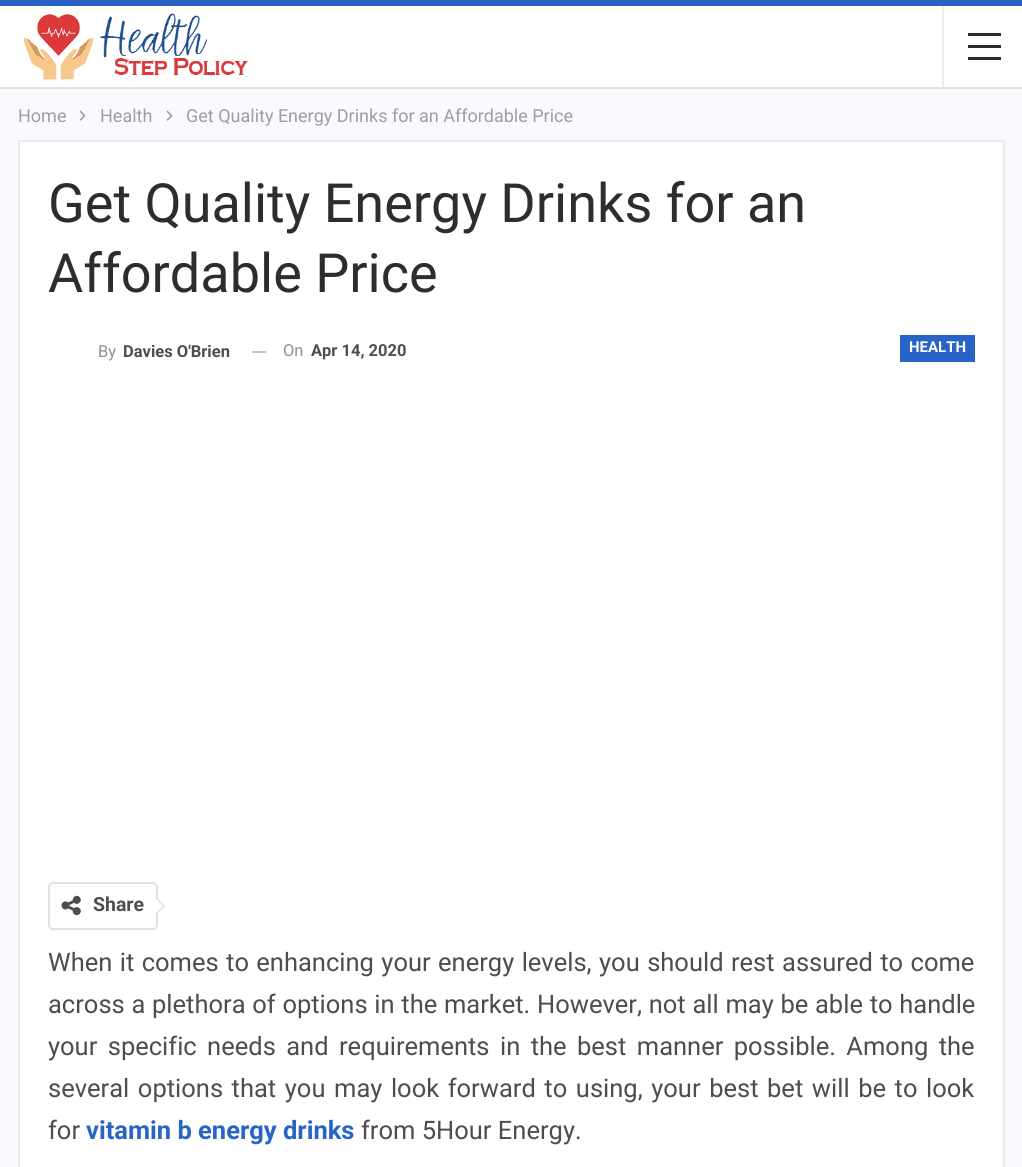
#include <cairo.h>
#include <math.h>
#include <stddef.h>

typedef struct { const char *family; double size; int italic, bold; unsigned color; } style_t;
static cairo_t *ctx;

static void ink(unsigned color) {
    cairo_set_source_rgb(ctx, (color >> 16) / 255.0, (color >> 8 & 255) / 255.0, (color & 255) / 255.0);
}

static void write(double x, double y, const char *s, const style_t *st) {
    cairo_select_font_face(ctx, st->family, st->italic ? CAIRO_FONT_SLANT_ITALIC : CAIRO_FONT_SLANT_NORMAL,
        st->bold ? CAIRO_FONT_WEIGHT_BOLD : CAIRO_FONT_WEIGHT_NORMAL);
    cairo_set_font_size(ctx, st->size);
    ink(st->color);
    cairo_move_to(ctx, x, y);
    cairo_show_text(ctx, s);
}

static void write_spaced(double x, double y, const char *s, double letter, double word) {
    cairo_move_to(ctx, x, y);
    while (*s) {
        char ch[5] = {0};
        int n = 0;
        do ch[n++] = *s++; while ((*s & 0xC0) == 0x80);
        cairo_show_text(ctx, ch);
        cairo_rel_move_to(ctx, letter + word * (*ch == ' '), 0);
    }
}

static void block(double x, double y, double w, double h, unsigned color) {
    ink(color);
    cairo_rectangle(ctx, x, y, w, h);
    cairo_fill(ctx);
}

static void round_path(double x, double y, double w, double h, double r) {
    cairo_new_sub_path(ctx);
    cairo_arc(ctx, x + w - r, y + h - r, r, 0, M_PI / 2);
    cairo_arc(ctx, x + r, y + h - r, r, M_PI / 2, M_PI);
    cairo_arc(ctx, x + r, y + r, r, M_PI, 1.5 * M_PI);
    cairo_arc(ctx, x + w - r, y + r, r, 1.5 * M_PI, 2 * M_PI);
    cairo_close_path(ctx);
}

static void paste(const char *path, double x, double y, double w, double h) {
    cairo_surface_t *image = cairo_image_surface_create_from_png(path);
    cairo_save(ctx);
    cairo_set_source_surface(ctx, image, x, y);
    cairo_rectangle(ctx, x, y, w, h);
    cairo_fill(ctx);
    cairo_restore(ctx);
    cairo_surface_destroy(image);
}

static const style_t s1 = {"Roboto", 18, 0, 0, 0x9e9e9e};
static const style_t s2 = {"Roboto", 54, 0, 0, 0x2d2d2d};
static const style_t s3 = {"Roboto", 16.5, 0, 0, 0x8f8f8f};
static const style_t s4 = {"Roboto", 16.5, 0, 1, 0x4d4d4d};
static const style_t s5 = {"Roboto", 15, 0, 1, 0xffffff};
static const style_t s6 = {"Roboto", 19.5, 0, 1, 0x4d4d4d};
static const style_t s7 = {"Roboto", 25.5, 0, 0, 0x4d4d4d};
static const style_t s8 = {"Roboto", 25.5, 0, 1, 0x2863c6};

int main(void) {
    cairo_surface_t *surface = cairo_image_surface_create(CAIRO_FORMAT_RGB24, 1022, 1167);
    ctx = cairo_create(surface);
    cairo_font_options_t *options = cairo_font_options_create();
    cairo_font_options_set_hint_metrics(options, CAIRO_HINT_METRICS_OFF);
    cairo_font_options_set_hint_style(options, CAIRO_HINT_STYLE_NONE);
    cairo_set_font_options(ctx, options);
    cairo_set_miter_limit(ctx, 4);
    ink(0x2863c6);
    cairo_paint(ctx);
    block(0, 89, 1022, 1078, 0xf9fafd);
    block(0, 6, 1022, 81, 0xffffff);
    block(0, 87, 1022, 2, 0xe5e5e5);
    paste("pic1.png", 24, 13, 225, 67);
    block(942, 6, 2, 81, 0xededed);
    block(968, 45, 33, 3, 0x2c2c2c);
    block(968, 33, 33, 3, 0x2c2c2c);
    block(968, 57, 33, 3, 0x2c2c2c);
    write(18, 122, "Home", &s1);
    paste("pic2.png", 79, 110, 7, 11);
    write(100, 122, "Health", &s1);
    paste("pic2.png", 166, 110, 7, 11);
    write(186, 122, "Get Quality Energy Drinks for an Affordable Price", &s1);
    ink(0xffffff);
    cairo_rectangle(ctx, 19, 141, 985, 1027);
    cairo_fill_preserve(ctx);
    ink(0xebebeb);
    cairo_stroke(ctx);
    write(48, 222, "Get Quality Energy Drinks for an", &s2);
    write(48, 292, "Affordable Price", &s2);
    write(98, 357, "By", &s3);
    write(123, 357, "Davies O'Brien", &s4);
    block(252, 351, 14, 2, 0xc4c4c4);
    write(283, 356, "On", &s3);
    write(311, 356, "Apr 14, 2020", &s4);
    block(900, 335, 75, 27, 0x2863c6);
    write(909, 352, "HEALTH", &s5);
    round_path(49, 883, 108, 46, 4);
    ink(0xe2e2e2);
    cairo_stroke(ctx);
    paste("pic3.png", 61, 895, 20, 21);
    write(93, 911, "Share", &s6);
    ink(0xd7d7d7);
    cairo_new_path(ctx);
    cairo_move_to(ctx, 156, 915);
    cairo_line_to(ctx, 156, 897);
    cairo_line_to(ctx, 165, 906);
    cairo_close_path(ctx);
    cairo_fill(ctx);
    ink(0xffffff);
    cairo_new_path(ctx);
    cairo_move_to(ctx, 156, 913.5);
    cairo_line_to(ctx, 156, 898.5);
    cairo_line_to(ctx, 163.5, 906);
    cairo_close_path(ctx);
    cairo_fill(ctx);
    cairo_select_font_face(ctx, "Roboto", CAIRO_FONT_SLANT_NORMAL, CAIRO_FONT_WEIGHT_NORMAL);
    cairo_set_font_size(ctx, 25.5);
    ink(0x4d4d4d);
    write_spaced(48, 971, "When it comes to enhancing your energy levels, you should rest assured to come", 0, 1.1);
    write_spaced(48, 1013, "across a plethora of options in the market. However, not all may be able to handle", 0, 0.4);
    write_spaced(48, 1055, "your specific needs and requirements in the best manner possible. Among the", 0, 4.1);
    write_spaced(48, 1097, "several options that you may look forward to using, your best bet will be to look", 0, 2.25);
    write(48, 1139, "for", &s7);
    write(86, 1139, "vitamin b energy drinks", &s8);
    write(361, 1139, "from 5Hour Energy.", &s7);
    cairo_surface_write_to_png(surface, "screenshot.png");
    cairo_font_options_destroy(options);
    cairo_destroy(ctx);
    cairo_surface_destroy(surface);
    return 0;
}
